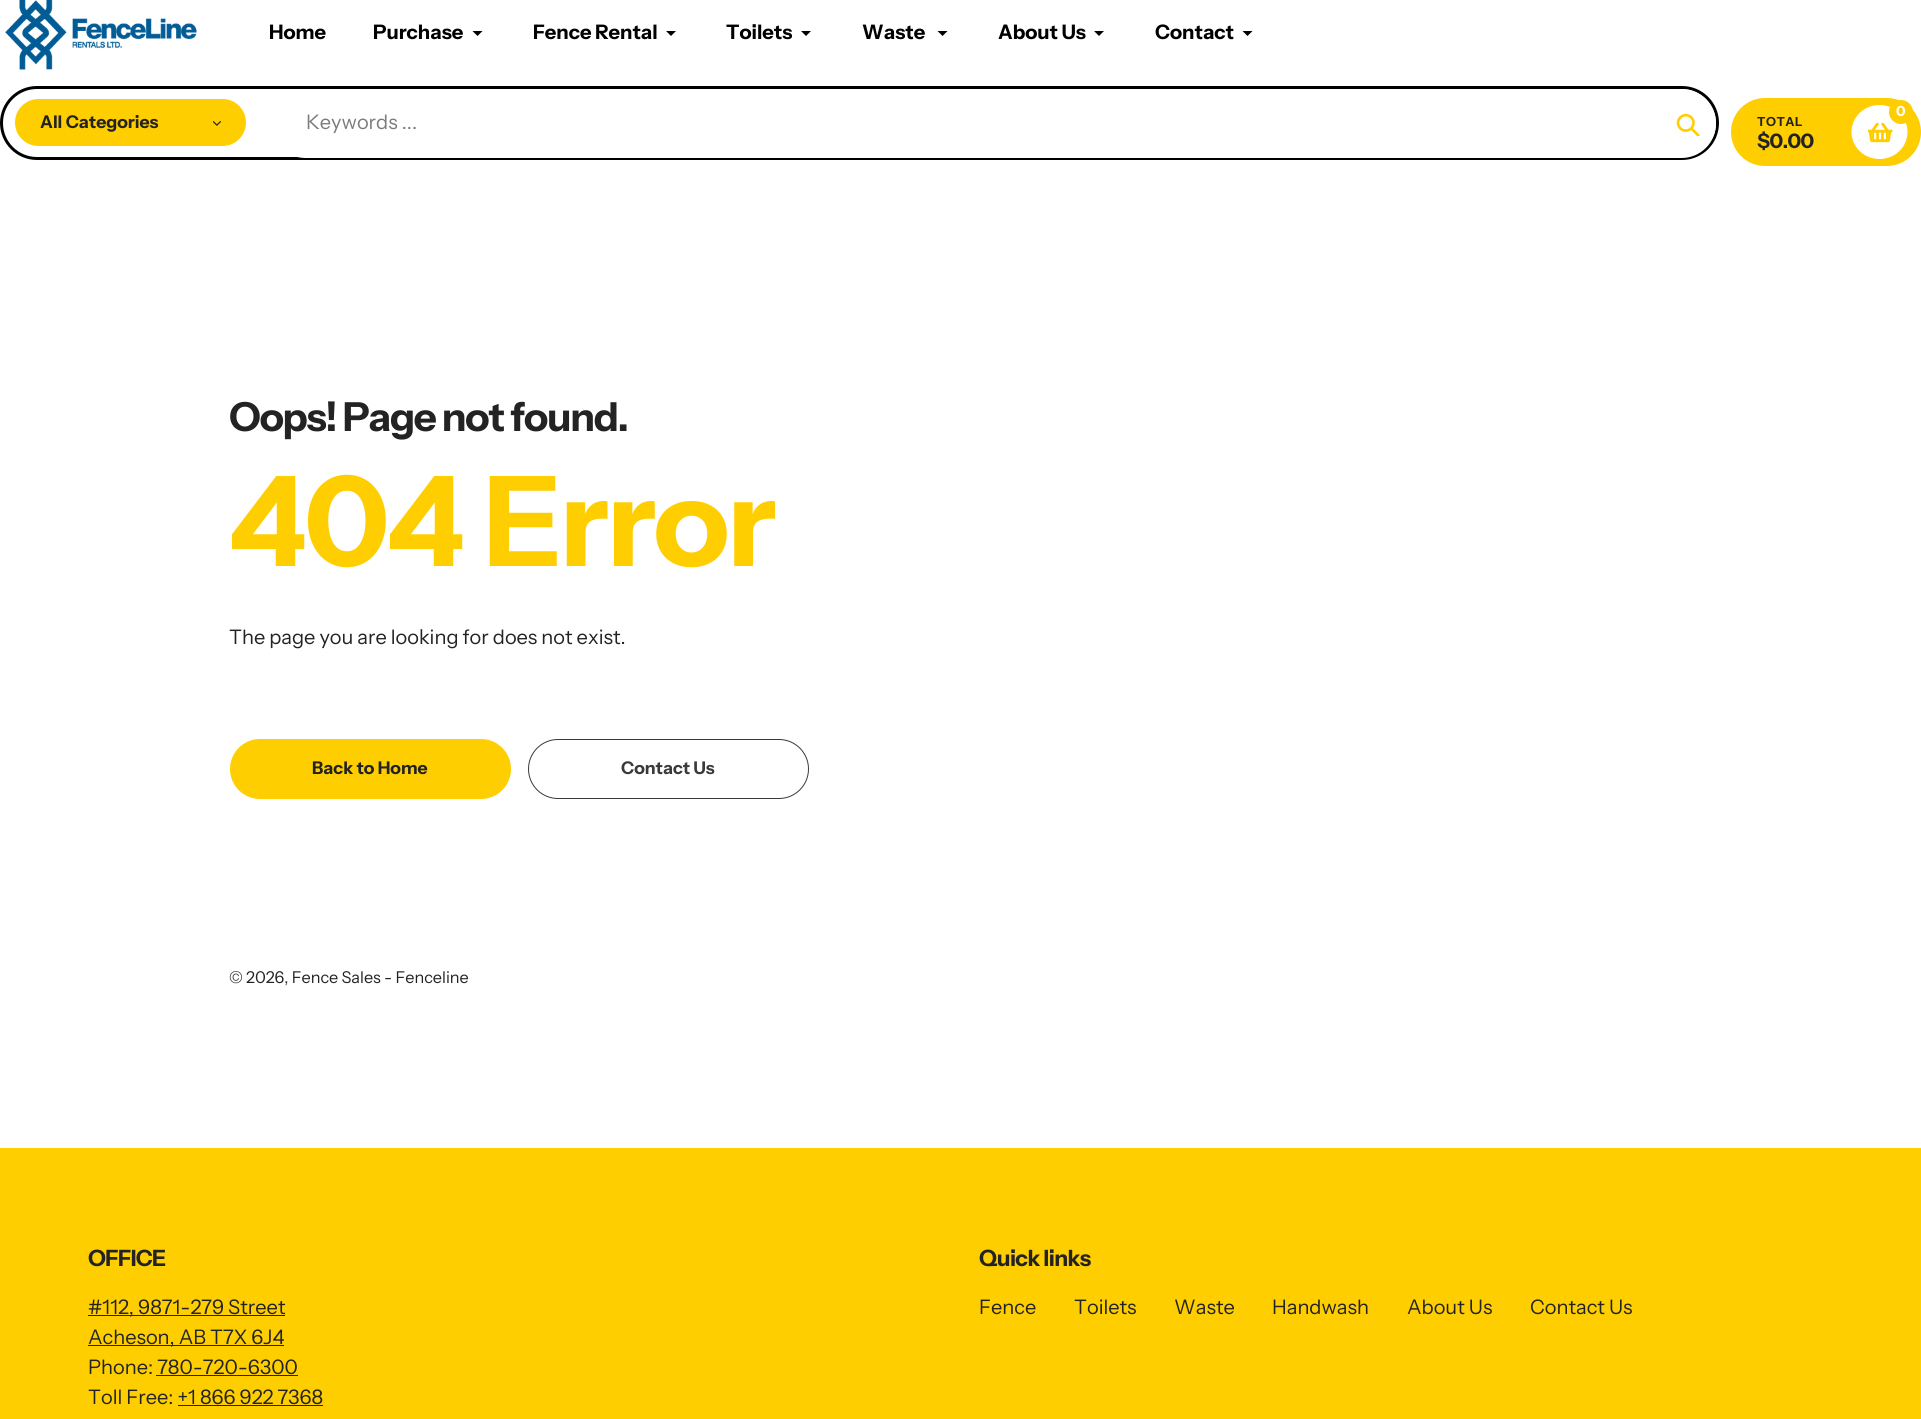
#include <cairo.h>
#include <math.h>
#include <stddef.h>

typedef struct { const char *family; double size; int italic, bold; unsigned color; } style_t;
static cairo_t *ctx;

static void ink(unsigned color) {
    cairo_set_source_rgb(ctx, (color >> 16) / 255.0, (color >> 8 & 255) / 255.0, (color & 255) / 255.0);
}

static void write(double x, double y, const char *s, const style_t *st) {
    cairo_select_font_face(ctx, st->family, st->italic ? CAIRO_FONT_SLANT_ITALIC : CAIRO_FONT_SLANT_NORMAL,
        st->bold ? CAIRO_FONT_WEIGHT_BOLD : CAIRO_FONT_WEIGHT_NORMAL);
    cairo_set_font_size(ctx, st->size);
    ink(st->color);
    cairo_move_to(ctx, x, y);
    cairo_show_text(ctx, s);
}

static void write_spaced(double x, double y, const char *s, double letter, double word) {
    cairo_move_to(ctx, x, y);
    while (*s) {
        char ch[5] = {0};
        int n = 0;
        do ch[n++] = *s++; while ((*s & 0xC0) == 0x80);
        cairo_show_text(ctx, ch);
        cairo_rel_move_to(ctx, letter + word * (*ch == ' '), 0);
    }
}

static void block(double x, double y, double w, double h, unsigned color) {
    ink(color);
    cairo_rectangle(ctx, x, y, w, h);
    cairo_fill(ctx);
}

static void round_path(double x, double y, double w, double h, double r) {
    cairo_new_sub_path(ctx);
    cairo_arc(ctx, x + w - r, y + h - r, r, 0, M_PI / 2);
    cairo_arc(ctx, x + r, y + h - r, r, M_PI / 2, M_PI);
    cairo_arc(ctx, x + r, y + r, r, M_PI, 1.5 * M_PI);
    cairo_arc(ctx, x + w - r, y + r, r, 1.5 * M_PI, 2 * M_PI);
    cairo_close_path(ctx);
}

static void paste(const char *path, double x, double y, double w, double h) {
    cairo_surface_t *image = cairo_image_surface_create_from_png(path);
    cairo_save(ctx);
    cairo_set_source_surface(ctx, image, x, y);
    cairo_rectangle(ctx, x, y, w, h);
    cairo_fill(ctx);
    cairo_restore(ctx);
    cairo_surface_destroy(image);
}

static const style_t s1 = {"Instrument Sans", 20, 0, 1, 0x000000};
static const style_t s2 = {"Instrument Sans", 17.5, 0, 1, 0x232323};
static const style_t s3 = {"Instrument Sans", 20, 0, 0, 0x7b7b7b};
static const style_t s4 = {"Instrument Sans", 14, 0, 1, 0xffffff};
static const style_t s5 = {"Instrument Sans", 20, 0, 0, 0x232323};
static const style_t s6 = {"Instrument Sans", 17.5, 0, 1, 0x3a3a3a};
static const style_t s7 = {"Instrument Sans", 16.25, 0, 0, 0x232323};

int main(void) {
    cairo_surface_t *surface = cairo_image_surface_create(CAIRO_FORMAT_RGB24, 1921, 1419);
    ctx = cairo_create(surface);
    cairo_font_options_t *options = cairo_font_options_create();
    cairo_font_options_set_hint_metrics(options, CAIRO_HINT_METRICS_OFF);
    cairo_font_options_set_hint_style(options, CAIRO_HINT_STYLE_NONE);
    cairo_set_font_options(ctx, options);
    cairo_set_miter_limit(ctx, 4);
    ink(0xffffff);
    cairo_paint(ctx);
    paste("pic1.png", 5, 0, 192, 70);
    write(269, 39, "Home", &s1);
    write(373, 39, "Purchase", &s1);
    cairo_new_path(ctx);
    cairo_move_to(ctx, 482.5, 31);
    cairo_line_to(ctx, 477.5, 36);
    cairo_line_to(ctx, 472.5, 31);
    cairo_fill(ctx);
    write(533, 39, "Fence Rental", &s1);
    cairo_new_path(ctx);
    cairo_move_to(ctx, 676, 31);
    cairo_line_to(ctx, 671, 36);
    cairo_line_to(ctx, 666, 31);
    cairo_fill(ctx);
    write(726, 39, "Toilets", &s1);
    cairo_new_path(ctx);
    cairo_move_to(ctx, 811, 31);
    cairo_line_to(ctx, 806, 36);
    cairo_line_to(ctx, 801, 31);
    cairo_fill(ctx);
    write(862, 39, "Waste", &s1);
    cairo_new_path(ctx);
    cairo_move_to(ctx, 947.5, 31);
    cairo_line_to(ctx, 942.5, 36);
    cairo_line_to(ctx, 937.5, 31);
    cairo_fill(ctx);
    write(998, 39, "About Us", &s1);
    cairo_new_path(ctx);
    cairo_move_to(ctx, 1104, 31);
    cairo_line_to(ctx, 1099, 36);
    cairo_line_to(ctx, 1094, 31);
    cairo_fill(ctx);
    write(1155, 39, "Contact", &s1);
    cairo_new_path(ctx);
    cairo_move_to(ctx, 1252.5, 31);
    cairo_line_to(ctx, 1247.5, 36);
    cairo_line_to(ctx, 1242.5, 31);
    cairo_fill(ctx);
    round_path(1.5, 87.5, 1716, 71, 35.5);
    cairo_set_line_width(ctx, 3);
    cairo_stroke(ctx);
    ink(0xffce00);
    round_path(15, 99, 231, 47, 23.5);
    cairo_fill(ctx);
    write(40, 128, "All Categories", &s2);
    paste("pic2.png", 213, 121, 8, 5);
    ink(0xffffff);
    round_path(271, 89, 1445, 69, 34.5);
    cairo_fill(ctx);
    write(306, 129, "Keywords ...", &s3);
    paste("pic3.png", 1676, 113, 24, 23);
    ink(0xffce00);
    round_path(1731, 98, 190, 68, 34);
    cairo_fill(ctx);
    ink(0xffffff);
    cairo_new_path(ctx);
    cairo_move_to(ctx, 1879.5, 105);
    cairo_curve_to(ctx, 1895, 105, 1907.5, 117, 1907.5, 132);
    cairo_curve_to(ctx, 1907.5, 147, 1895, 159, 1879.5, 159);
    cairo_curve_to(ctx, 1864, 159, 1851.5, 147, 1851.5, 132);
    cairo_curve_to(ctx, 1851.5, 117, 1864, 105, 1879.5, 105);
    cairo_close_path(ctx);
    cairo_fill(ctx);
    paste("pic4.png", 1868, 122, 25, 21);
    ink(0xffce00);
    cairo_arc(ctx, 1901, 112, 12, 0, 2 * M_PI);
    cairo_fill(ctx);
    write(1896, 116, "0", &s4);
    cairo_set_font_size(ctx, 12.5);
    ink(0x232323);
    write_spaced(1757, 126, "TOTAL", 0.5, 0);
    cairo_set_font_size(ctx, 20);
    write_spaced(1757, 148, "$0.00", -0.6, 0);
    cairo_set_font_size(ctx, 40);
    write_spaced(229, 431, "Oops! Page not found.", -1.25, 0);
    cairo_set_font_size(ctx, 125);
    ink(0xffce00);
    write_spaced(229, 566, "404 Error", -2.5, 0);
    write(229, 644, "The page you are looking for does not exist.", &s5);
    ink(0xffce00);
    round_path(230, 739, 281, 60, 30);
    cairo_fill(ctx);
    write(312, 774, "Back to Home", &s2);
    round_path(528.5, 739.5, 280, 59, 29.5);
    ink(0x3a3a3a);
    cairo_set_line_width(ctx, 1);
    cairo_stroke(ctx);
    write(621, 774, "Contact Us", &s6);
    write(229, 983, "© 2026, Fence Sales - Fenceline", &s7);
    block(0, 1148, 1921, 271, 0xffce00);
    cairo_select_font_face(ctx, "Instrument Sans", CAIRO_FONT_SLANT_NORMAL, CAIRO_FONT_WEIGHT_BOLD);
    cairo_set_font_size(ctx, 22.5);
    ink(0x232323);
    write_spaced(88, 1266, "OFFICE", -0.6, 0);
    block(88, 1315, 197, 1, 0x232323);
    write(88, 1314, "#112, 9871-279 Street", &s5);
    block(88, 1345, 196, 1, 0x232323);
    write(88, 1344, "Acheson, AB T7X 6J4", &s5);
    write(88, 1374, "Phone: 780-720-6300", &s5);
    block(156, 1375, 142, 1, 0x232323);
    write(88, 1404, "Toll Free: +1 866 922 7368", &s5);
    block(178, 1405, 145, 1, 0x232323);
    cairo_select_font_face(ctx, "Instrument Sans", CAIRO_FONT_SLANT_NORMAL, CAIRO_FONT_WEIGHT_BOLD);
    cairo_set_font_size(ctx, 22.5);
    write_spaced(979, 1266, "Quick links", -0.6, 0);
    write(979, 1314, "Fence", &s5);
    write(1074, 1314, "Toilets", &s5);
    write(1174, 1314, "Waste", &s5);
    write(1272, 1314, "Handwash", &s5);
    write(1407, 1314, "About Us", &s5);
    write(1530, 1314, "Contact Us", &s5);
    cairo_surface_write_to_png(surface, "screenshot.png");
    cairo_font_options_destroy(options);
    cairo_destroy(ctx);
    cairo_surface_destroy(surface);
    return 0;
}
